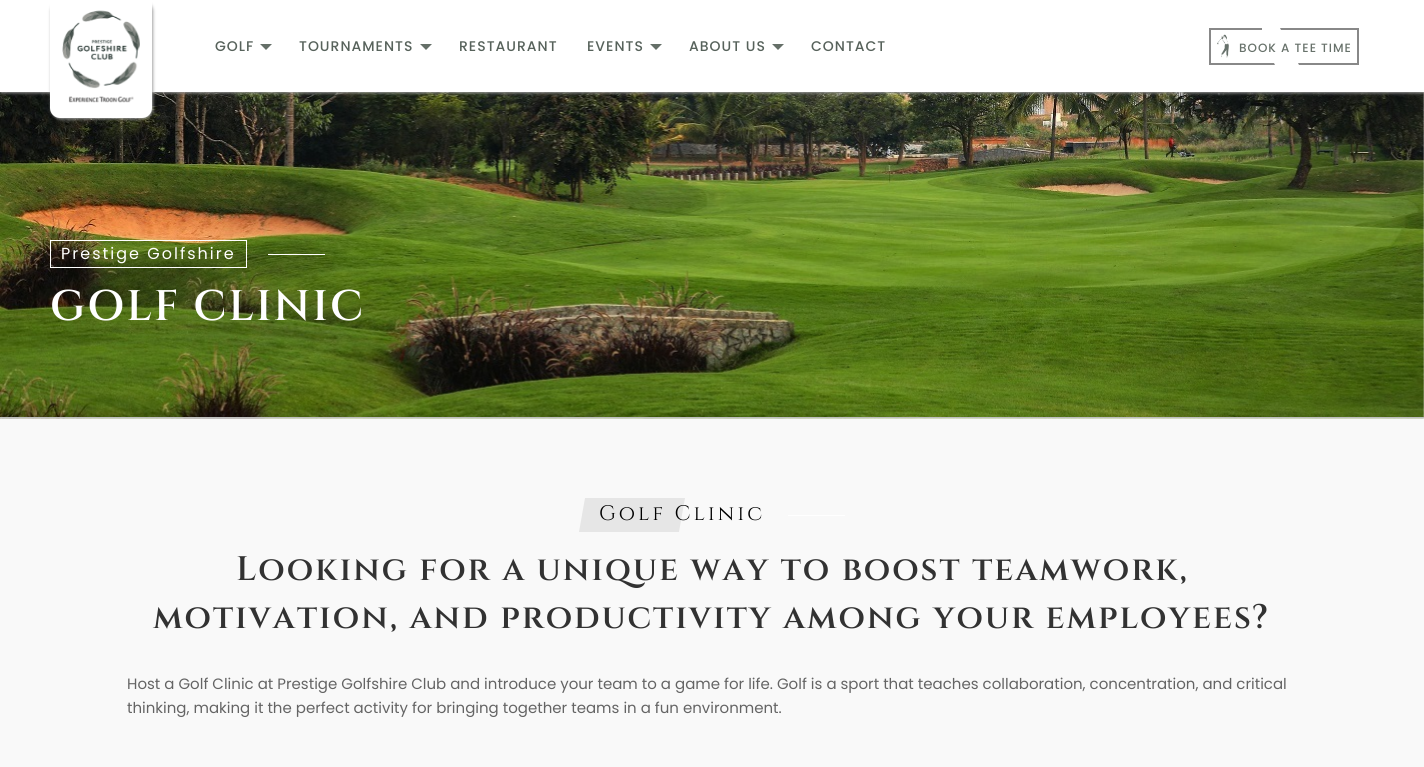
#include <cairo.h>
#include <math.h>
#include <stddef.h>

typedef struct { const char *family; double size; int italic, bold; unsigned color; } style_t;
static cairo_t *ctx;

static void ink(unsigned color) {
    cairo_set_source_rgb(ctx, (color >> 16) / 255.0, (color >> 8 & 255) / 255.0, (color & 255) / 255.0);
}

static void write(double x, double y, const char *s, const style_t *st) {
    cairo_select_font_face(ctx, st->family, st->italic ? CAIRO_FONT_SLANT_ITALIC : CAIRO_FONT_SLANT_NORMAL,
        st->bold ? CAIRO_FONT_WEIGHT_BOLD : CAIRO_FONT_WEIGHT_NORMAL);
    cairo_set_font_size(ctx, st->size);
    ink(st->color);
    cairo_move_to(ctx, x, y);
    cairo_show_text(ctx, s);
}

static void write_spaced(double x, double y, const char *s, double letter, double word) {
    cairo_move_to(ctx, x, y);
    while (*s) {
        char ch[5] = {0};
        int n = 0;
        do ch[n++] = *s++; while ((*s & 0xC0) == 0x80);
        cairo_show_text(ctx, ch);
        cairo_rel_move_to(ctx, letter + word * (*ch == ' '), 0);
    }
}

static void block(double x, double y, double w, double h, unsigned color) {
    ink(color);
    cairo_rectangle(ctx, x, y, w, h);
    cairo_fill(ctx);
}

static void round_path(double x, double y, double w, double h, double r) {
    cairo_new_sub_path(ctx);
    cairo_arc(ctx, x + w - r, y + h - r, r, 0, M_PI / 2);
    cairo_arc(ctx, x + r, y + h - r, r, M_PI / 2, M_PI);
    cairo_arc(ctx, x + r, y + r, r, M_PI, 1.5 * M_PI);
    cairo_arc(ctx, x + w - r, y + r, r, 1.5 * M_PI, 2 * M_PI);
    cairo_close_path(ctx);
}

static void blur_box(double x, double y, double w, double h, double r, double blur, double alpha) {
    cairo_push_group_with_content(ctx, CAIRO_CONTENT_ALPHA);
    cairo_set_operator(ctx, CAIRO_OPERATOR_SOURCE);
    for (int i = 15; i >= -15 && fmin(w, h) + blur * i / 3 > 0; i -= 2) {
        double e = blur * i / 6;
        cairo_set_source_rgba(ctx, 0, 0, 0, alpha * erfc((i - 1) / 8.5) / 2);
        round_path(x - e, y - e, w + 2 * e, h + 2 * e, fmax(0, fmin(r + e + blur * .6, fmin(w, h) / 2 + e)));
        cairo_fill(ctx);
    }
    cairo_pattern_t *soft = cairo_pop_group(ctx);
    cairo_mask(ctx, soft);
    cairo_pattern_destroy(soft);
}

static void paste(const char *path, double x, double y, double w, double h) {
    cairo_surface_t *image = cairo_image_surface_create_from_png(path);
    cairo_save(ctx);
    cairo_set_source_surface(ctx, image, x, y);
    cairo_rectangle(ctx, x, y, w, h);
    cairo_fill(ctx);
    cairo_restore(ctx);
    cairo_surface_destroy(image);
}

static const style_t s1 = {"Poppins", 15, 0, 0, 0x646464};

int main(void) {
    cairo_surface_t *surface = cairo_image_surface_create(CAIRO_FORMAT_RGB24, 1424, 767);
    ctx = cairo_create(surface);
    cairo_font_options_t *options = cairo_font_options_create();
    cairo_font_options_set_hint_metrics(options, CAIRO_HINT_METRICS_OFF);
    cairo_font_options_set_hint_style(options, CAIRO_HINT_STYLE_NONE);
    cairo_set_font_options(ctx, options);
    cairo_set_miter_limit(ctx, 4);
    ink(0xf9f9f9);
    cairo_paint(ctx);
    paste("pic3.png", 0, 92, 1424, 327);
    ink(0x9f9f9f);
    blur_box(1, 1, 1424, 92, 0, 1.5, 1);
    block(0, 0, 1424, 92, 0xffffff);
    ink(0x9f9f9f);
    blur_box(51, 1, 102, 118, 10, 1.5, 1);
    ink(0xffffff);
    cairo_new_path(ctx);
    cairo_move_to(ctx, 50, 0);
    cairo_line_to(ctx, 152, 0);
    cairo_line_to(ctx, 152, 108);
    cairo_curve_to(ctx, 152, 113.5, 147.5, 118, 142, 118);
    cairo_line_to(ctx, 60, 118);
    cairo_curve_to(ctx, 54.5, 118, 50, 113.5, 50, 108);
    cairo_close_path(ctx);
    cairo_fill(ctx);
    paste("pic1.png", 62, 10, 78, 93);
    cairo_select_font_face(ctx, "Poppins Medium", CAIRO_FONT_SLANT_NORMAL, CAIRO_FONT_WEIGHT_NORMAL);
    cairo_set_font_size(ctx, 14);
    ink(0x57625b);
    write_spaced(215, 51, "GOLF", 1, 0);
    ink(0x656f68);
    cairo_new_path(ctx);
    cairo_move_to(ctx, 260, 44);
    cairo_line_to(ctx, 272, 44);
    cairo_line_to(ctx, 266, 50);
    cairo_close_path(ctx);
    cairo_fill(ctx);
    ink(0x57625b);
    write_spaced(299, 51, "TOURNAMENTS", 1, 0);
    ink(0x656f68);
    cairo_new_path(ctx);
    cairo_move_to(ctx, 420, 44);
    cairo_line_to(ctx, 432, 44);
    cairo_line_to(ctx, 426, 50);
    cairo_close_path(ctx);
    cairo_fill(ctx);
    ink(0x57625b);
    write_spaced(459, 51, "RESTAURANT", 1, 0);
    write_spaced(587, 51, "EVENTS", 1, 0);
    ink(0x656f68);
    cairo_new_path(ctx);
    cairo_move_to(ctx, 650, 44);
    cairo_line_to(ctx, 662, 44);
    cairo_line_to(ctx, 656, 50);
    cairo_close_path(ctx);
    cairo_fill(ctx);
    ink(0x57625b);
    write_spaced(689, 51, "ABOUT US", 1, 0);
    ink(0x656f68);
    cairo_new_path(ctx);
    cairo_move_to(ctx, 772, 44);
    cairo_line_to(ctx, 784, 44);
    cairo_line_to(ctx, 778, 50);
    cairo_close_path(ctx);
    cairo_fill(ctx);
    ink(0x57625b);
    write_spaced(811, 51, "CONTACT", 1, 0);
    paste("pic2.png", 1217, 34, 12, 24);
    cairo_set_font_size(ctx, 12);
    ink(0x68726b);
    write_spaced(1239, 52, "BOOK A TEE TIME", 1, 0);
    ink(0x888888);
    cairo_set_fill_rule(ctx, CAIRO_FILL_RULE_EVEN_ODD);
    cairo_new_path(ctx);
    cairo_move_to(ctx, 1211, 30);
    cairo_line_to(ctx, 1262, 30);
    cairo_line_to(ctx, 1262, 28);
    cairo_line_to(ctx, 1209, 28);
    cairo_line_to(ctx, 1209, 65);
    cairo_line_to(ctx, 1275, 65);
    cairo_line_to(ctx, 1274, 63);
    cairo_line_to(ctx, 1211, 63);
    cairo_close_path(ctx);
    cairo_move_to(ctx, 1280, 28);
    cairo_line_to(ctx, 1281, 30);
    cairo_line_to(ctx, 1357, 30);
    cairo_line_to(ctx, 1357, 63);
    cairo_line_to(ctx, 1298, 63);
    cairo_line_to(ctx, 1299, 65);
    cairo_line_to(ctx, 1359, 65);
    cairo_line_to(ctx, 1359, 28);
    cairo_close_path(ctx);
    cairo_fill(ctx);
    block(0, 417, 1424, 1, 0xbebebe);
    cairo_rectangle(ctx, 50.5, 240.5, 196, 27);
    ink(0xffffff);
    cairo_set_line_width(ctx, 1);
    cairo_stroke(ctx);
    cairo_select_font_face(ctx, "Poppins", CAIRO_FONT_SLANT_NORMAL, CAIRO_FONT_WEIGHT_NORMAL);
    cairo_set_font_size(ctx, 16);
    write_spaced(61, 259, "Prestige Golfshire", 2, 0);
    block(268, 254, 57, 1, 0xffffff);
    cairo_select_font_face(ctx, "Cinzel SemiBold", CAIRO_FONT_SLANT_NORMAL, CAIRO_FONT_WEIGHT_NORMAL);
    cairo_set_font_size(ctx, 42.75);
    write_spaced(50, 320, "GOLF CLINIC", 2, 0);
    ink(0xe6e6e6);
    cairo_set_fill_rule(ctx, CAIRO_FILL_RULE_WINDING);
    cairo_new_path(ctx);
    cairo_move_to(ctx, 585, 498);
    cairo_line_to(ctx, 685, 498);
    cairo_line_to(ctx, 679, 532);
    cairo_line_to(ctx, 579, 532);
    cairo_close_path(ctx);
    cairo_fill(ctx);
    cairo_select_font_face(ctx, "Cinzel", CAIRO_FONT_SLANT_NORMAL, CAIRO_FONT_WEIGHT_NORMAL);
    cairo_set_font_size(ctx, 21);
    ink(0x000000);
    write_spaced(599, 520, "Golf Clinic", 3, 0);
    block(788, 515, 57, 1, 0xffffff);
    cairo_select_font_face(ctx, "Cinzel SemiBold", CAIRO_FONT_SLANT_NORMAL, CAIRO_FONT_WEIGHT_NORMAL);
    cairo_set_font_size(ctx, 34);
    ink(0x323232);
    write_spaced(236, 580, "Looking for a unique way to boost teamwork,", 2, 0);
    write_spaced(153, 628, "motivation, and productivity among your employees?", 2, 0);
    write(127, 689, "Host a Golf Clinic at Prestige Golfshire Club and introduce your team to a game for life. Golf is a sport that teaches collaboration, concentration, and critical", &s1);
    write(127, 713, "thinking, making it the perfect activity for bringing together teams in a fun environment.", &s1);
    cairo_surface_write_to_png(surface, "screenshot.png");
    cairo_font_options_destroy(options);
    cairo_destroy(ctx);
    cairo_surface_destroy(surface);
    return 0;
}
